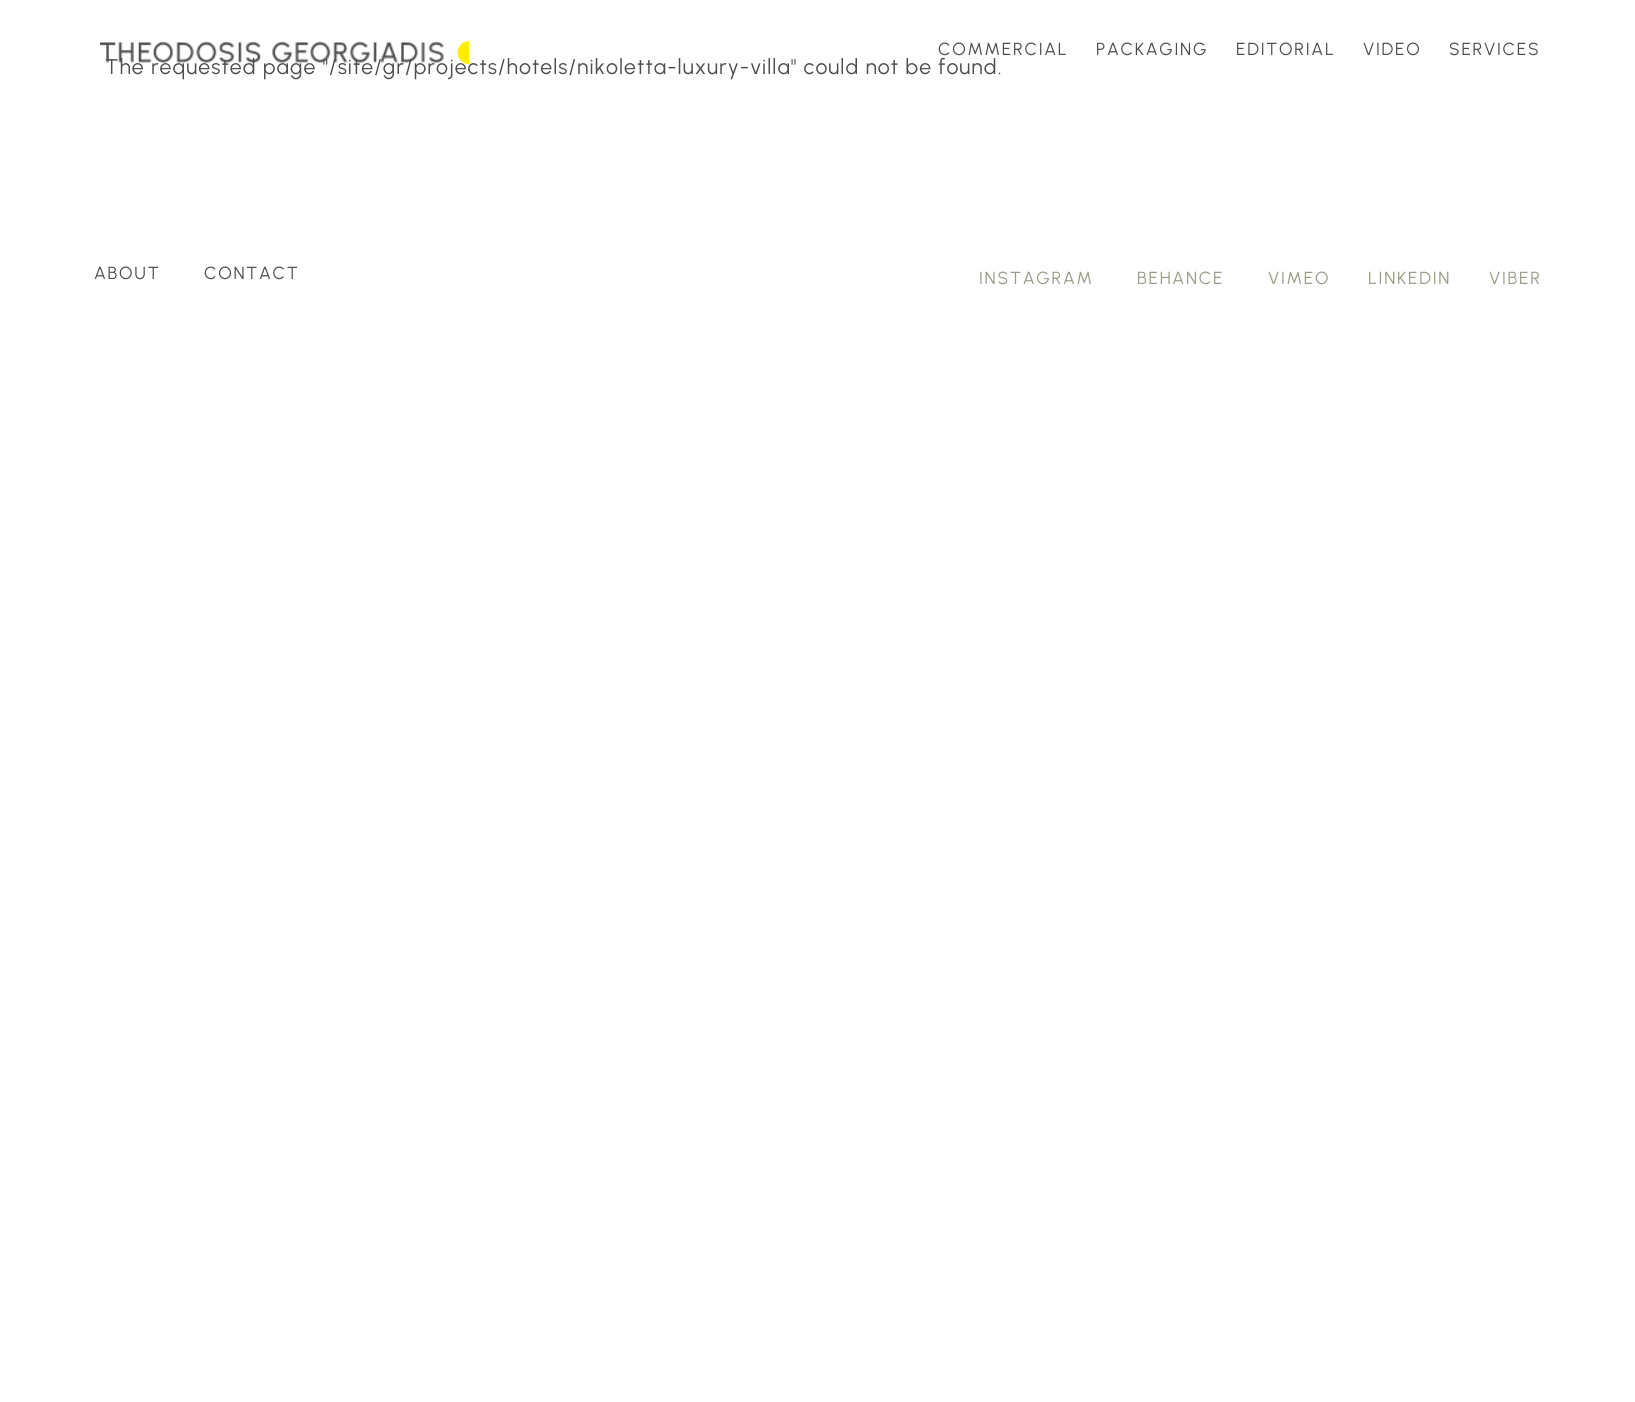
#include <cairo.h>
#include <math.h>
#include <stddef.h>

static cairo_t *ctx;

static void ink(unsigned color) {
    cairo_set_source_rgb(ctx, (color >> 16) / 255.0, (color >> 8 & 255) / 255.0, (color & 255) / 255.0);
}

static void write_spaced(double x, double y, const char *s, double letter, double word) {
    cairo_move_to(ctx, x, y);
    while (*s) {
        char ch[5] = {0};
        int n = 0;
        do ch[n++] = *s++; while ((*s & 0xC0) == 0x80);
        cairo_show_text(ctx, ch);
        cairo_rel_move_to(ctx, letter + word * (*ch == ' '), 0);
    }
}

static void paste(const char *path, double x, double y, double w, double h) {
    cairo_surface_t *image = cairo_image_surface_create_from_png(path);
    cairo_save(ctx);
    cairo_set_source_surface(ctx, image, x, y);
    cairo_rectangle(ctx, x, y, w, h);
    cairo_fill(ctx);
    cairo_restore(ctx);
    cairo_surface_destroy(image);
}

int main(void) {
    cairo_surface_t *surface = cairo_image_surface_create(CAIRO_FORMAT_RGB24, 1635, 1402);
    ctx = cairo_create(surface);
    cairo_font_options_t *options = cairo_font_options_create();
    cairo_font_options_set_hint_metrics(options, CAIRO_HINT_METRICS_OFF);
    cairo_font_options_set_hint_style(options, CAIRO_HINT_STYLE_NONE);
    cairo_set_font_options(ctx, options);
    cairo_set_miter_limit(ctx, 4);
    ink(0xffffff);
    cairo_paint(ctx);
    cairo_select_font_face(ctx, "Urbanist", CAIRO_FONT_SLANT_NORMAL, CAIRO_FONT_WEIGHT_NORMAL);
    cairo_set_font_size(ctx, 21.25);
    ink(0x4d4d4d);
    write_spaced(105, 74, "The requested page \"/site/gr/projects/hotels/nikoletta-luxury-villa\" could not be found.", 1.05, 0);
    paste("pic1.png", 100, 41, 369, 23);
    cairo_set_font_size(ctx, 17.5);
    write_spaced(938, 55, "COMMERCIAL", 1.75, 0);
    write_spaced(1096, 55, "PACKAGING", 1.75, 0);
    write_spaced(1236, 55, "EDITORIAL", 1.75, 0);
    write_spaced(1363, 55, "VIDEO", 1.75, 0);
    write_spaced(1449, 55, "SERVICES", 1.75, 0);
    write_spaced(94, 279, "ABOUT", 1.75, 0);
    write_spaced(204, 279, "CONTACT", 1.75, 0);
    ink(0x9b9987);
    write_spaced(979, 284, "INSTAGRAM", 1.75, 0);
    write_spaced(1137, 284, "BEHANCE", 1.75, 0);
    write_spaced(1268, 284, "VIMEO", 1.75, 0);
    write_spaced(1368, 284, "LINKEDIN", 1.75, 0);
    write_spaced(1489, 284, "VIBER", 1.75, 0);
    cairo_surface_write_to_png(surface, "screenshot.png");
    cairo_font_options_destroy(options);
    cairo_destroy(ctx);
    cairo_surface_destroy(surface);
    return 0;
}
